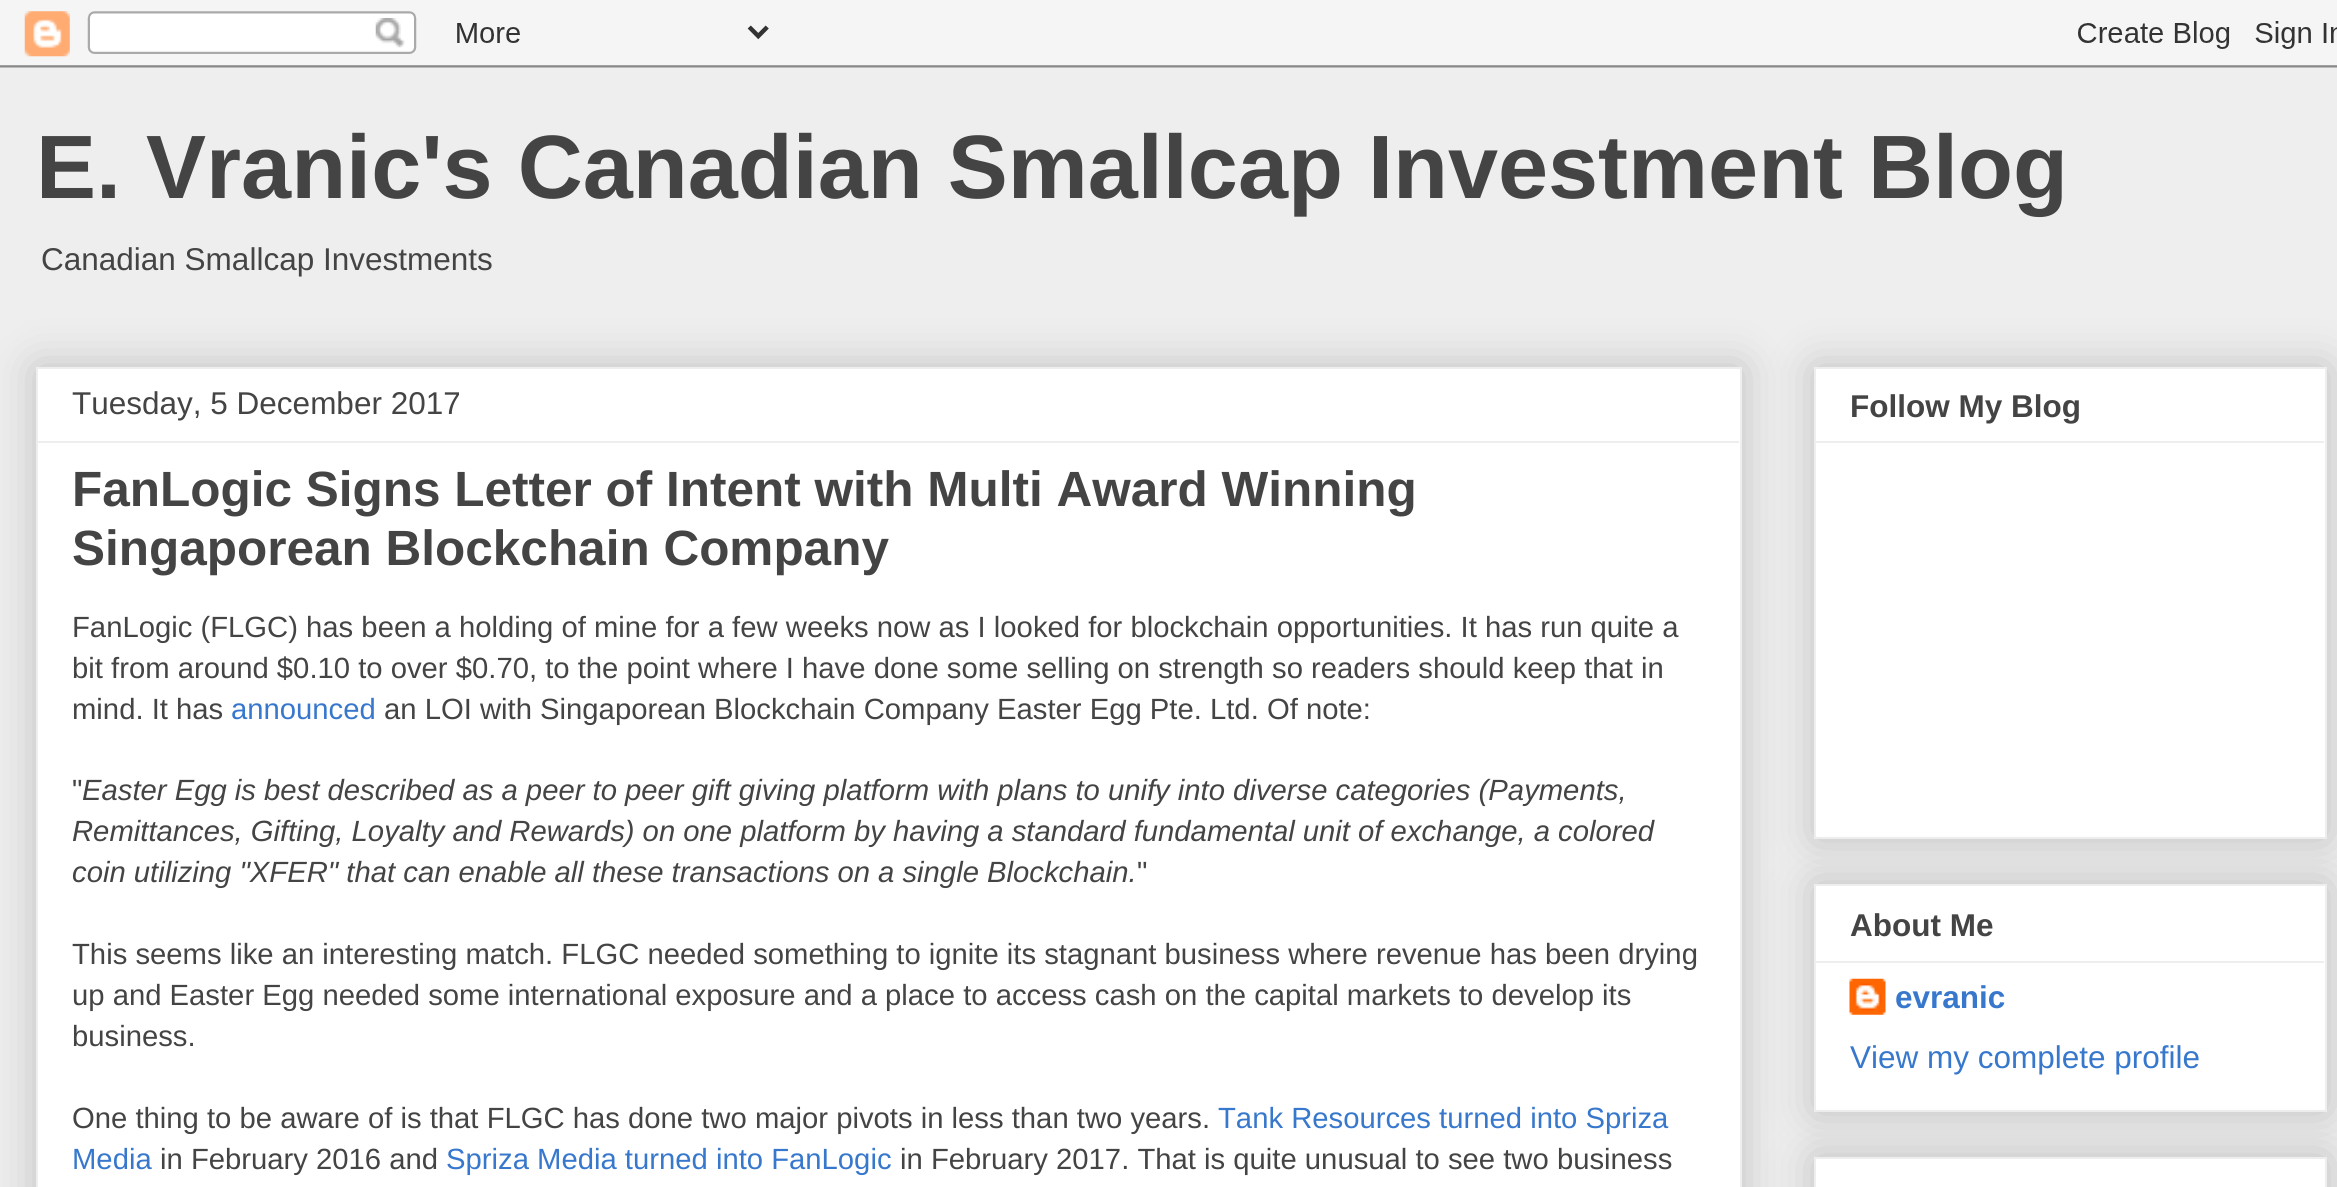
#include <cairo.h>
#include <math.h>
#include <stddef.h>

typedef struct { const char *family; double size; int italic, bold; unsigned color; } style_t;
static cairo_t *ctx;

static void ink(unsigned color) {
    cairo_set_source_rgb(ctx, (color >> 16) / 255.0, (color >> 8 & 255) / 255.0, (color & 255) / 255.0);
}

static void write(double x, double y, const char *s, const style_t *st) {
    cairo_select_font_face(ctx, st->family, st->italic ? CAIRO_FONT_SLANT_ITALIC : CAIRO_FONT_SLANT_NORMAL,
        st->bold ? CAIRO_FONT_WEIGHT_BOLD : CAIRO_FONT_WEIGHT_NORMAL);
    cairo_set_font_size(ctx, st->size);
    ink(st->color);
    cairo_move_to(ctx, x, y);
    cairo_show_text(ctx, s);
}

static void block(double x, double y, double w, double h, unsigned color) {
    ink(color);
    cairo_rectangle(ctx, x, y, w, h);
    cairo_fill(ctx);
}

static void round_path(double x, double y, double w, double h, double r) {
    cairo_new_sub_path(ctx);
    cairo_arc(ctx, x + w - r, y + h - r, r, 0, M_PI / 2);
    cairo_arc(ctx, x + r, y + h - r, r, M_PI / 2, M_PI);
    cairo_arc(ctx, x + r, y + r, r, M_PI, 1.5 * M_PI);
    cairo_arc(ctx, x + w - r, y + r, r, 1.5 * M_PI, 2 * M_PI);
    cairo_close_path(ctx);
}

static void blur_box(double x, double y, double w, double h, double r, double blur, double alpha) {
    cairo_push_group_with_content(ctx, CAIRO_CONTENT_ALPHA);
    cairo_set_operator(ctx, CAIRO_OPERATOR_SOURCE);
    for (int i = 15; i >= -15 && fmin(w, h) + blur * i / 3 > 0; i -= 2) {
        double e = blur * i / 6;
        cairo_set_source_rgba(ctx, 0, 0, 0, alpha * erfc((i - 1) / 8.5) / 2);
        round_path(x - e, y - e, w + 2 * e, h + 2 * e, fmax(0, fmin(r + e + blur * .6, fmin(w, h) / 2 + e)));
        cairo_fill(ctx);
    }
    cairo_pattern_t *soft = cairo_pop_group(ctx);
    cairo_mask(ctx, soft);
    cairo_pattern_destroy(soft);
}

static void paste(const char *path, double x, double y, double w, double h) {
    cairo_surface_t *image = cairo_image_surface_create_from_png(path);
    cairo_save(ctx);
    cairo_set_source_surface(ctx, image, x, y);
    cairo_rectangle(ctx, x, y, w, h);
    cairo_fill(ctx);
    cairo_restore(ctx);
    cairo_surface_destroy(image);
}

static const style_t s1 = {"Liberation Sans", 90, 0, 1, 0x444444};
static const style_t s2 = {"Liberation Sans", 31.5, 0, 0, 0x444444};
static const style_t s3 = {"Liberation Sans", 49.5, 0, 1, 0x444444};
static const style_t s4 = {"Liberation Sans", 29.25, 0, 0, 0x444444};
static const style_t s5 = {"Liberation Sans", 29.25, 0, 0, 0x3778cd};
static const style_t s6 = {"Liberation Sans", 29.25, 1, 0, 0x444444};
static const style_t s7 = {"Liberation Sans", 31.5, 0, 1, 0x444444};
static const style_t s8 = {"Liberation Sans", 31.5, 0, 1, 0x3778cd};
static const style_t s9 = {"Liberation Sans", 31.5, 0, 0, 0x3778cd};

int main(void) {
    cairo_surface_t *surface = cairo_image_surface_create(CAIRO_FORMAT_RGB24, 2337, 1187);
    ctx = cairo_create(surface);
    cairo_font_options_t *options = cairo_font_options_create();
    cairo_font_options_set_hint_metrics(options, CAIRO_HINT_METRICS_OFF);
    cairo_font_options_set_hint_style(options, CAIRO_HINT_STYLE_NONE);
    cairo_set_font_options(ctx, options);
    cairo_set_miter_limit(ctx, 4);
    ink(0xeeeeee);
    cairo_paint(ctx);
    paste("pic1.png", 0, 0, 2337, 68);
    write(36, 198, "E. Vranic's Canadian Smallcap Investment Blog", &s1);
    write(41, 270, "Canadian Smallcap Investments", &s2);
    ink(0x000000);
    blur_box(36, 367, 1706, 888, 0, 22.5, 0.2);
    ink(0xffffff);
    cairo_rectangle(ctx, 37, 368, 1704, 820);
    cairo_fill_preserve(ctx);
    ink(0xeeeeee);
    cairo_stroke(ctx);
    write(72, 414, "Tuesday, 5 December 2017", &s2);
    block(38, 441, 1701, 2, 0xeeeeee);
    write(72, 506, "FanLogic Signs Letter of Intent with Multi Award Winning", &s3);
    write(72, 565, "Singaporean Blockchain Company", &s3);
    write(72, 637, "FanLogic (FLGC) has been a holding of mine for a few weeks now as I looked for blockchain opportunities. It has run quite a", &s4);
    write(72, 678, "bit from around $0.10 to over $0.70, to the point where I have done some selling on strength so readers should keep that in", &s4);
    write(72, 719, "mind. It has", &s4);
    write(231, 719, "announced", &s5);
    write(384, 719, "an LOI with Singaporean Blockchain Company Easter Egg Pte. Ltd. Of note:", &s4);
    write(72, 800, "\"", &s4);
    write(82, 800, "Easter Egg is best described as a peer to peer gift giving platform with plans to unify into diverse categories (Payments,", &s6);
    write(72, 841, "Remittances, Gifting, Loyalty and Rewards) on one platform by having a standard fundamental unit of exchange, a colored", &s6);
    write(72, 882, "coin utilizing \"XFER\" that can enable all these transactions on a single Blockchain.", &s6);
    write(1137, 882, "\"", &s4);
    write(72, 964, "This seems like an interesting match. FLGC needed something to ignite its stagnant business where revenue has been drying", &s4);
    write(72, 1005, "up and Easter Egg needed some international exposure and a place to access cash on the capital markets to develop its", &s4);
    write(72, 1046, "business.", &s4);
    write(72, 1128, "One thing to be aware of is that FLGC has done two major pivots in less than two years.", &s4);
    write(1218, 1128, "Tank Resources turned into Spriza", &s5);
    write(72, 1169, "Media", &s5);
    write(160, 1169, "in February 2016 and", &s4);
    write(446, 1169, "Spriza Media turned into FanLogic", &s5);
    write(900, 1169, "in February 2017. That is quite unusual to see two business", &s4);
    ink(0x000000);
    blur_box(1814, 367, 513, 472, 0, 22.5, 0.2);
    ink(0xffffff);
    cairo_rectangle(ctx, 1815, 368, 511, 470);
    cairo_fill_preserve(ctx);
    ink(0xeeeeee);
    cairo_stroke(ctx);
    write(1850, 417, "Follow My Blog", &s7);
    block(1816, 441, 508, 2, 0xeeeeee);
    ink(0x000000);
    blur_box(1814, 884, 513, 228, 0, 22.5, 0.2);
    ink(0xffffff);
    cairo_rectangle(ctx, 1815, 885, 511, 226);
    cairo_fill_preserve(ctx);
    ink(0xeeeeee);
    cairo_stroke(ctx);
    write(1850, 936, "About Me", &s7);
    block(1816, 961, 508, 2, 0xeeeeee);
    paste("pic2.png", 1849, 978, 37, 37);
    write(1895, 1008, "evranic", &s8);
    write(1850, 1068, "View my complete profile", &s9);
    ink(0x000000);
    blur_box(1814, 1157, 513, 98, 0, 22.5, 0.2);
    ink(0xffffff);
    cairo_rectangle(ctx, 1815, 1158, 511, 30);
    cairo_fill_preserve(ctx);
    ink(0xeeeeee);
    cairo_stroke(ctx);
    cairo_surface_write_to_png(surface, "screenshot.png");
    cairo_font_options_destroy(options);
    cairo_destroy(ctx);
    cairo_surface_destroy(surface);
    return 0;
}
